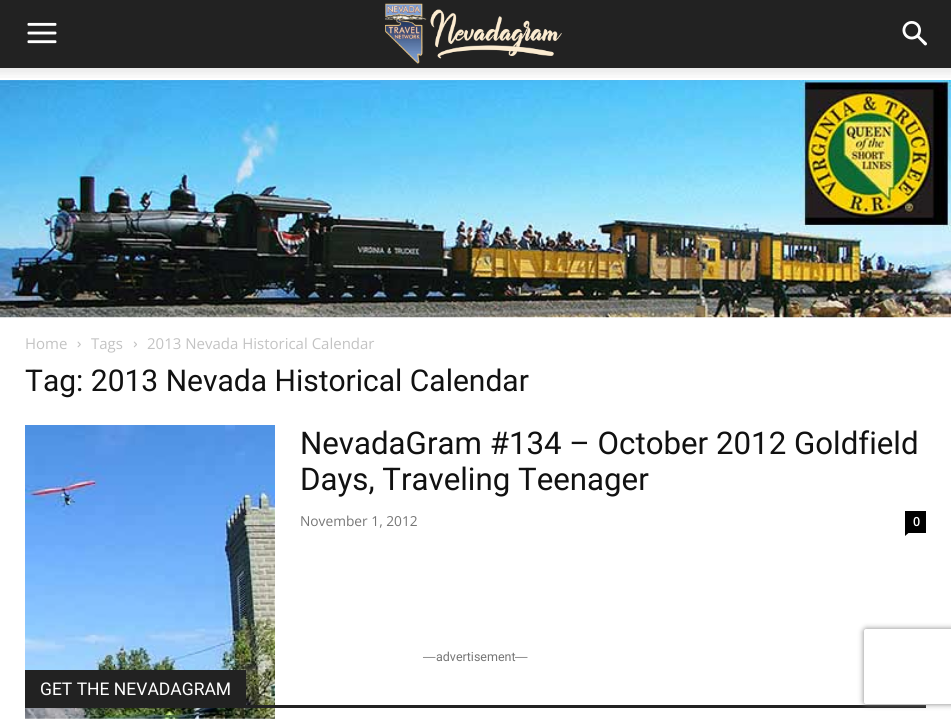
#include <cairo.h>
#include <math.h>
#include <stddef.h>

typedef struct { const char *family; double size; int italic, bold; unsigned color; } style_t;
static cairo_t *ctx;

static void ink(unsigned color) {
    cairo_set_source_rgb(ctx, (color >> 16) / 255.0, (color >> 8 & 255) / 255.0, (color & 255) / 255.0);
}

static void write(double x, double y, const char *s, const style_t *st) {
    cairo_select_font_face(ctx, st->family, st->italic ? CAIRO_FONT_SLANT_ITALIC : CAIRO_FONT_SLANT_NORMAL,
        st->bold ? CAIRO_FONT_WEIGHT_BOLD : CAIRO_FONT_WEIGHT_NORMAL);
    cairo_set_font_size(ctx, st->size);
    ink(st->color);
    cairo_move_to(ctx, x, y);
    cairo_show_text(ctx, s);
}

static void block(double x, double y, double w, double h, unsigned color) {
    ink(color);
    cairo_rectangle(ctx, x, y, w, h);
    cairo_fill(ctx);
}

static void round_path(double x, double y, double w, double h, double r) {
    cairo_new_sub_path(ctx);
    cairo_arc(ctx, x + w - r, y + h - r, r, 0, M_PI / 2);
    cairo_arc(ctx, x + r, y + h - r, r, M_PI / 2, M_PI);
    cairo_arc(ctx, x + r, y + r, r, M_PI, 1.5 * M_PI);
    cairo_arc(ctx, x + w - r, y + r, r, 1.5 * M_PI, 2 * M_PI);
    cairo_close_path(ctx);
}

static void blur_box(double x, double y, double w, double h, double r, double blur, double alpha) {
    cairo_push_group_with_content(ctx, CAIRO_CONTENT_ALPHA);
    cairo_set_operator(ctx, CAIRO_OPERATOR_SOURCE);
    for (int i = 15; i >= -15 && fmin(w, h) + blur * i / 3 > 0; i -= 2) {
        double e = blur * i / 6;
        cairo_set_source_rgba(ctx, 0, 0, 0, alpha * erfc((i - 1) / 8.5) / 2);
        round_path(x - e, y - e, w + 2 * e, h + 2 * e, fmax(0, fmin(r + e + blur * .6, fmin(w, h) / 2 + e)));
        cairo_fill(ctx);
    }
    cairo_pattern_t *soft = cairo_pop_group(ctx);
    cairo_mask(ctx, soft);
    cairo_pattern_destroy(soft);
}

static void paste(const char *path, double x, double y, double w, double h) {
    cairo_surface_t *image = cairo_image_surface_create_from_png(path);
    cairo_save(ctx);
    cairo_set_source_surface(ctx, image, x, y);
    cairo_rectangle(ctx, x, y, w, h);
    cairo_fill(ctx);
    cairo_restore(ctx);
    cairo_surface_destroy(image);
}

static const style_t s1 = {"Open Sans", 15, 0, 0, 0xc3c3c3};
static const style_t s2 = {"Roboto", 30, 0, 0, 0x111111};
static const style_t s3 = {"Roboto", 31.25, 0, 0, 0x111111};
static const style_t s4 = {"Open Sans", 13.75, 0, 0, 0x767676};
static const style_t s5 = {"Open Sans SemiBold", 12.5, 0, 0, 0xffffff};
static const style_t s6 = {"Ubuntu", 12.5, 0, 0, 0x767676};
static const style_t s7 = {"Roboto", 12.5, 0, 0, 0x767676};
static const style_t s8 = {"Roboto", 17.5, 0, 0, 0xffffff};

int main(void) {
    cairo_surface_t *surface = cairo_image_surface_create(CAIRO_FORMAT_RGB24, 951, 721);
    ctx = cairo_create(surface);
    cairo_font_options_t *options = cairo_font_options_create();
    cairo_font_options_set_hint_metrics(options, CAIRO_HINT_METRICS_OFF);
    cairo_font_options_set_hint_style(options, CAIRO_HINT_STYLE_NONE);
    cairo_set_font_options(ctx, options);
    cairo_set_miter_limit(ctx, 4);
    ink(0xffffff);
    cairo_paint(ctx);
    block(0, 0, 951, 68, 0x222222);
    paste("pic1.png", 27, 22, 30, 22);
    paste("pic2.png", 385, 3, 177, 61);
    paste("pic3.png", 902, 21, 25, 25);
    paste("pic4.png", 0, 68, 951, 10);
    paste("pic5.png", 0, 80, 951, 238);
    write(25, 349, "Home", &s1);
    paste("pic6.png", 77, 341, 4, 7);
    write(91, 349, "Tags", &s1);
    paste("pic7.png", 133, 341, 4, 7);
    write(147, 349, "2013 Nevada Historical Calendar", &s1);
    write(25, 391, "Tag: 2013 Nevada Historical Calendar", &s2);
    paste("pic8.png", 25, 425, 250, 294);
    write(300, 454, "NevadaGram #134 – October 2012 Goldfield", &s3);
    write(300, 490, "Days, Traveling Teenager", &s3);
    write(300, 526, "November 1, 2012", &s4);
    block(905, 511, 21, 22, 0x000000);
    write(913, 526, "0", &s5);
    ink(0x000000);
    cairo_new_path(ctx);
    cairo_move_to(ctx, 905, 532.5);
    cairo_line_to(ctx, 909, 532.5);
    cairo_line_to(ctx, 905, 536);
    cairo_close_path(ctx);
    cairo_fill(ctx);
    write(423, 661, "―", &s6);
    write(436, 661, "advertisement", &s7);
    write(515, 661, "―", &s6);
    block(25, 705, 901, 3, 0x222222);
    block(25, 670, 221, 35, 0x222222);
    write(40, 695, "GET THE NEVADAGRAM", &s8);
    cairo_save(ctx);
    cairo_set_fill_rule(ctx, CAIRO_FILL_RULE_EVEN_ODD);
    cairo_new_path(ctx);
    cairo_move_to(ctx, 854, 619);
    cairo_line_to(ctx, 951, 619);
    cairo_line_to(ctx, 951, 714);
    cairo_line_to(ctx, 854, 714);
    cairo_close_path(ctx);
    cairo_move_to(ctx, 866.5, 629);
    cairo_line_to(ctx, 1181.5, 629);
    cairo_curve_to(ctx, 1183, 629, 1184, 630, 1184, 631.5);
    cairo_line_to(ctx, 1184, 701.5);
    cairo_curve_to(ctx, 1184, 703, 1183, 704, 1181.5, 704);
    cairo_line_to(ctx, 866.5, 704);
    cairo_curve_to(ctx, 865, 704, 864, 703, 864, 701.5);
    cairo_line_to(ctx, 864, 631.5);
    cairo_curve_to(ctx, 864, 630, 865, 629, 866.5, 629);
    cairo_close_path(ctx);
    cairo_clip(ctx);
    ink(0x808080);
    blur_box(864, 629, 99, 75, 2.5, 3, 1);
    cairo_restore(ctx);
    cairo_surface_write_to_png(surface, "screenshot.png");
    cairo_font_options_destroy(options);
    cairo_destroy(ctx);
    cairo_surface_destroy(surface);
    return 0;
}
